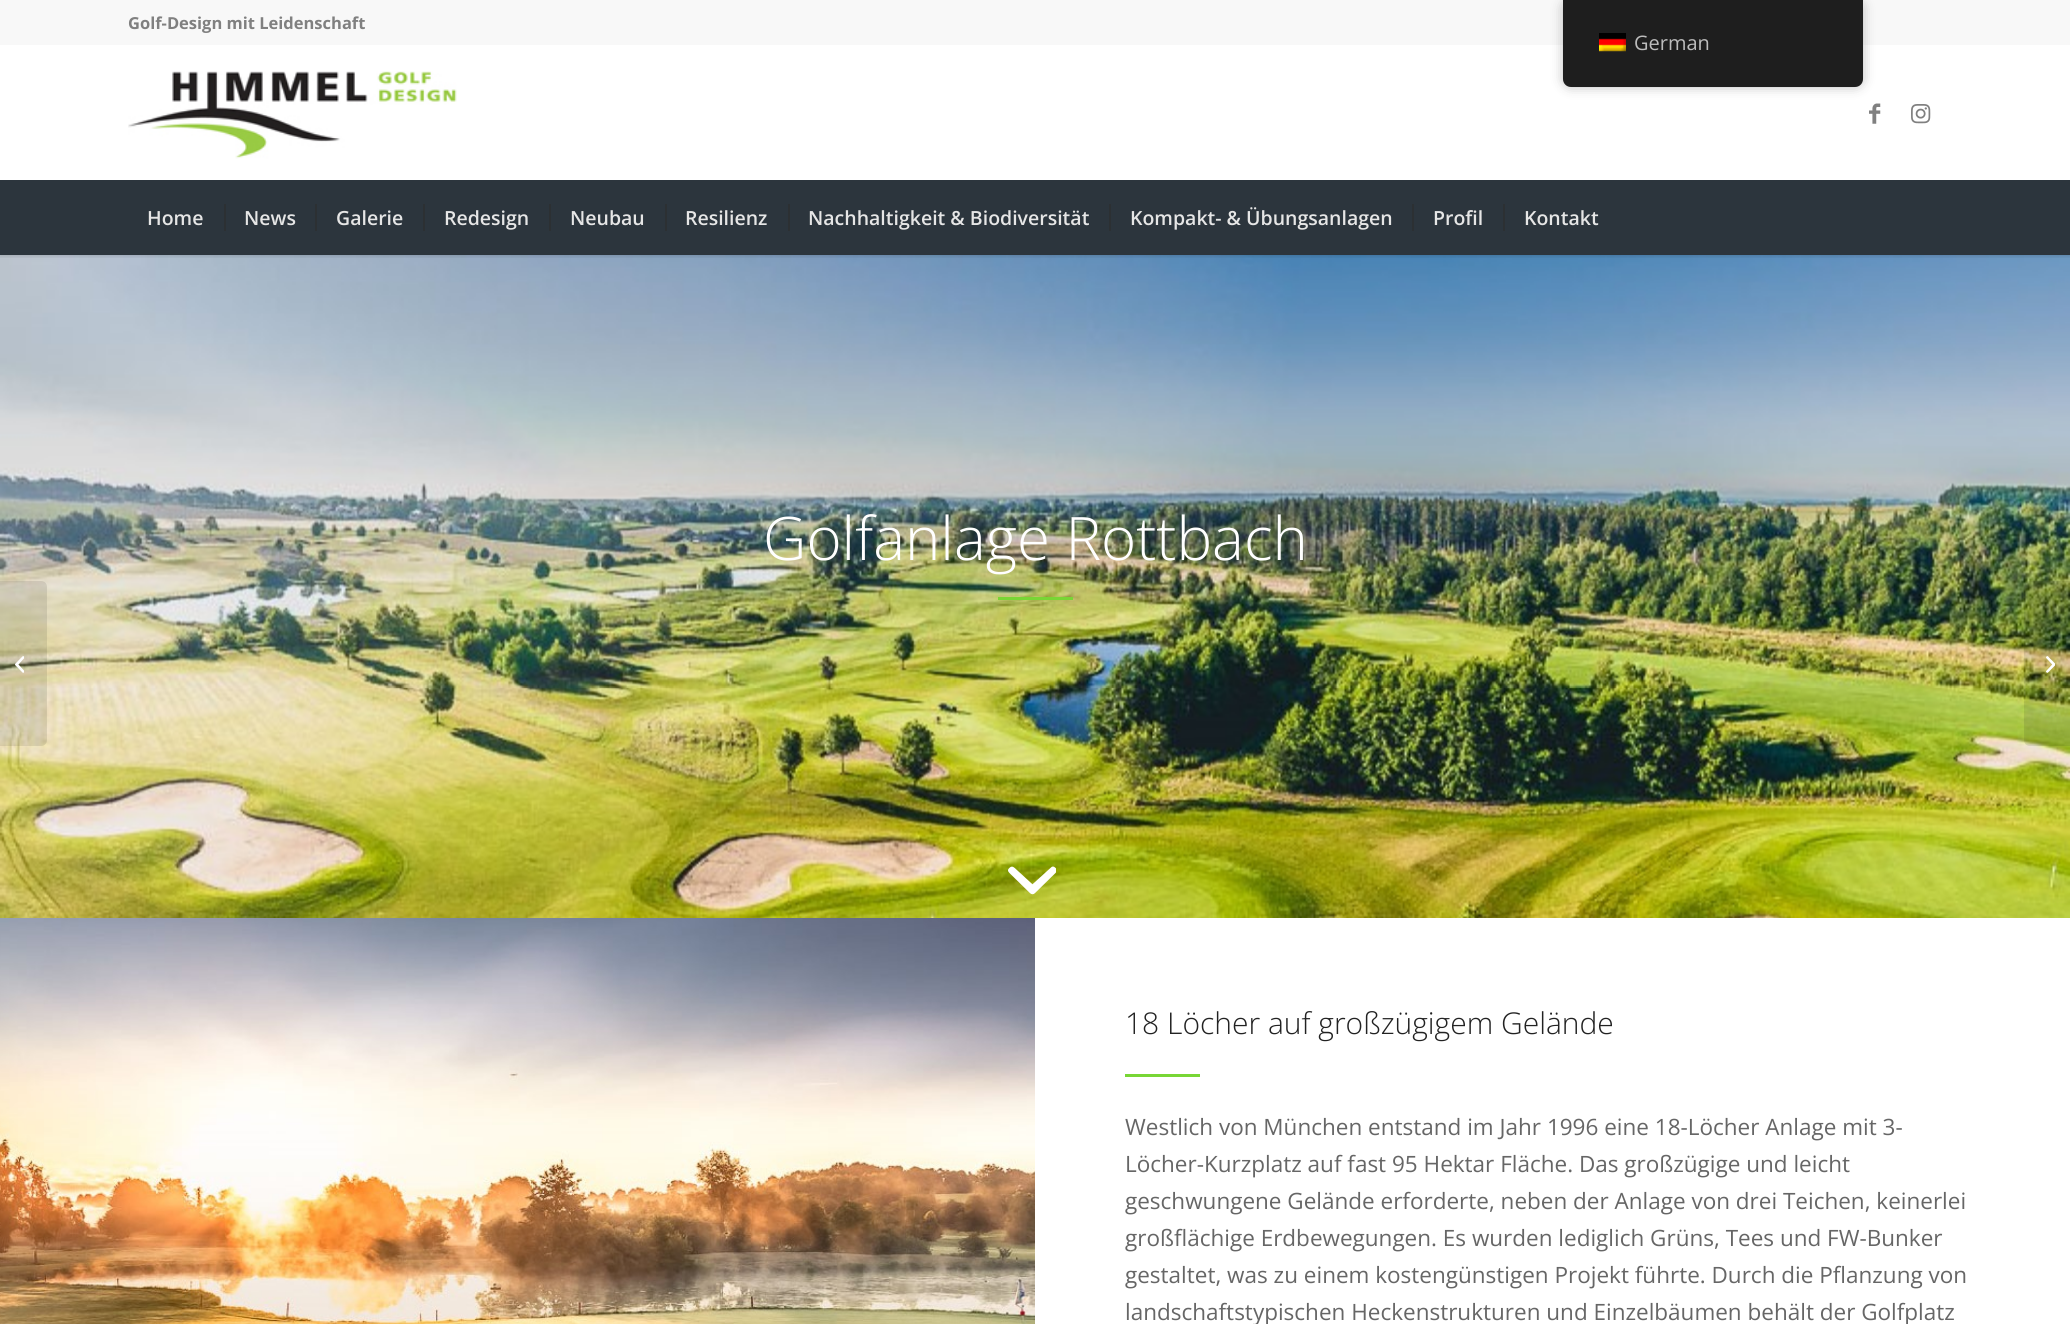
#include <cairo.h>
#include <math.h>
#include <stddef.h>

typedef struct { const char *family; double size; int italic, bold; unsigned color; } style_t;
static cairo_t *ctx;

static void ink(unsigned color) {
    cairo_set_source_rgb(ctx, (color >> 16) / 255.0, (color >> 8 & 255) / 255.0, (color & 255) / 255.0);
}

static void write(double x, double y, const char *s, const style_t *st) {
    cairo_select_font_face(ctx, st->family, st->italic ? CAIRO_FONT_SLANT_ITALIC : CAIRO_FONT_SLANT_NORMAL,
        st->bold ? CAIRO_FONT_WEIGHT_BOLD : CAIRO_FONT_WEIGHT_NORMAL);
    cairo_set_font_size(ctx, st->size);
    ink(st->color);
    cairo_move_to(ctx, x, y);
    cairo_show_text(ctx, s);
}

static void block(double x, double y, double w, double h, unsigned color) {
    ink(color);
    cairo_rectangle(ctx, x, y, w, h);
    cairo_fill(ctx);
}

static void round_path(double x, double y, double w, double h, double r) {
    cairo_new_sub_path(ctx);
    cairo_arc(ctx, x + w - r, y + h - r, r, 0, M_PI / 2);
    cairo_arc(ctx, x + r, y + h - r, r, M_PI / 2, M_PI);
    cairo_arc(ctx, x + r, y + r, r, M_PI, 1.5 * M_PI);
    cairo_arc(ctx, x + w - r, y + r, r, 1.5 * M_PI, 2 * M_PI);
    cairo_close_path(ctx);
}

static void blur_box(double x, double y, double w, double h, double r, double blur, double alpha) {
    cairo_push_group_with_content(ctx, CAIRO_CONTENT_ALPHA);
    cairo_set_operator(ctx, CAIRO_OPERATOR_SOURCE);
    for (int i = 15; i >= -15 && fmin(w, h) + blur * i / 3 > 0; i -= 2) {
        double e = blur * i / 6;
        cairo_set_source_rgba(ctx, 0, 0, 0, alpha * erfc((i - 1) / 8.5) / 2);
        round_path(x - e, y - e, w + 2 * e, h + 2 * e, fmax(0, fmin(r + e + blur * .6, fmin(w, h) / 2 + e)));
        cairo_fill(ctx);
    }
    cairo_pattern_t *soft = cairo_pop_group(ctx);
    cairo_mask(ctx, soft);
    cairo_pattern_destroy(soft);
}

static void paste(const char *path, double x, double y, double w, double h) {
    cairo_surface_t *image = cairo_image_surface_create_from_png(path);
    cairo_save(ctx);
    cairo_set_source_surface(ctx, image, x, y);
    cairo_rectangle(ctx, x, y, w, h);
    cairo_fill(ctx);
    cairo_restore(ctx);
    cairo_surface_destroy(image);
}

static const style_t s1 = {"Open Sans", 16.5, 0, 1, 0x808080};
static const style_t s2 = {"Open Sans SemiBold", 19.5, 0, 0, 0xe6e6e6};
static const style_t s3 = {"Open Sans Light", 60, 0, 0, 0xffffff};
static const style_t s4 = {"Open Sans Light", 30, 0, 0, 0x222222};
static const style_t s5 = {"Open Sans", 22.5, 0, 0, 0x666666};
static const style_t s6 = {"Open Sans", 20, 0, 0, 0xbdbdbd};

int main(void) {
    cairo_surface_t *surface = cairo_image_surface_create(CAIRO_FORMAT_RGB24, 2070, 1324);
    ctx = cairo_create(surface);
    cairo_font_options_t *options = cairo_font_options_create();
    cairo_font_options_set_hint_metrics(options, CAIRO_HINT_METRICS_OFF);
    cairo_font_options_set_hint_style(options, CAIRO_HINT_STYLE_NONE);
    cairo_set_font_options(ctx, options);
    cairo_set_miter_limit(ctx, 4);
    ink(0xffffff);
    cairo_paint(ctx);
    paste("pic5.png", 0, 255, 2070, 663);
    cairo_save(ctx);
    cairo_rectangle(ctx, 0, 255, 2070, 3);
    cairo_clip(ctx);
    ink(0x000000);
    blur_box(-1, -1, 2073, 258, 0, 1.5, 0.1);
    cairo_restore(ctx);
    block(0, 0, 2070, 45, 0xf8f8f8);
    write(128, 29, "Golf-Design mit Leidenschaft", &s1);
    paste("pic1.png", 128, 71, 329, 88);
    paste("pic2.png", 1869, 103, 12, 21);
    paste("pic3.png", 1911, 104, 20, 20);
    block(0, 180, 2070, 75, 0x2c353d);
    write(147, 225, "Home", &s2);
    write(244, 225, "News", &s2);
    block(224, 204, 2, 27, 0x2c3033);
    write(336, 225, "Galerie", &s2);
    block(315, 204, 2, 27, 0x2c3033);
    write(444, 225, "Redesign", &s2);
    block(423, 204, 2, 27, 0x2c3033);
    write(570, 225, "Neubau", &s2);
    block(549, 204, 2, 27, 0x2c3033);
    write(685, 225, "Resilienz", &s2);
    block(665, 204, 2, 27, 0x2c3033);
    write(808, 225, "Nachhaltigkeit & Biodiversität", &s2);
    block(788, 204, 2, 27, 0x2c3033);
    write(1130, 225, "Kompakt- & Übungsanlagen", &s2);
    block(1109, 204, 2, 27, 0x2c3033);
    write(1433, 225, "Profil", &s2);
    block(1412, 204, 2, 27, 0x2c3033);
    write(1524, 225, "Kontakt", &s2);
    block(1503, 204, 2, 27, 0x2c3033);
    cairo_set_source_rgba(ctx, 0, 0, 0, 0.1);
    cairo_new_path(ctx);
    cairo_move_to(ctx, 0, 581);
    cairo_line_to(ctx, 41, 581);
    cairo_curve_to(ctx, 44.5, 581, 47, 583.5, 47, 587);
    cairo_line_to(ctx, 47, 740);
    cairo_curve_to(ctx, 47, 743.5, 44.5, 746, 41, 746);
    cairo_line_to(ctx, 0, 746);
    cairo_close_path(ctx);
    cairo_fill(ctx);
    paste("pic4.png", 15, 656, 9, 17);
    write(763, 560, "Golfanlage Rottbach", &s3);
    block(998, 597, 75, 3, 0x78d635);
    paste("pic6.png", 1008, 866, 48, 29);
    paste("pic7.png", 0, 918, 1035, 406);
    write(1125, 1034, "18 Löcher auf großzügigem Gelände", &s4);
    block(1125, 1074, 75, 3, 0x78d635);
    write(1125, 1135, "Westlich von München entstand im Jahr 1996 eine 18-Löcher Anlage mit 3-", &s5);
    write(1125, 1172, "Löcher-Kurzplatz auf fast 95 Hektar Fläche. Das großzügige und leicht", &s5);
    write(1125, 1209, "geschwungene Gelände erforderte, neben der Anlage von drei Teichen, keinerlei", &s5);
    write(1125, 1246, "großflächige Erdbewegungen. Es wurden lediglich Grüns, Tees und FW-Bunker", &s5);
    write(1125, 1283, "gestaltet, was zu einem kostengünstigen Projekt führte. Durch die Pflanzung von", &s5);
    write(1125, 1320, "landschaftstypischen Heckenstrukturen und Einzelbäumen behält der Golfplatz", &s5);
    cairo_set_source_rgba(ctx, 0, 0, 0, 0.1);
    cairo_new_path(ctx);
    cairo_move_to(ctx, 2030, 581);
    cairo_line_to(ctx, 2070, 581);
    cairo_line_to(ctx, 2070, 746);
    cairo_line_to(ctx, 2030, 746);
    cairo_curve_to(ctx, 2026.5, 746, 2024, 743.5, 2024, 740);
    cairo_line_to(ctx, 2024, 587);
    cairo_curve_to(ctx, 2024, 583.5, 2026.5, 581, 2030, 581);
    cairo_close_path(ctx);
    cairo_fill(ctx);
    paste("pic8.png", 2046, 656, 9, 17);
    ink(0x000000);
    blur_box(1563, 0, 300, 87, 8, 6, 0.25);
    ink(0x1e1e1e);
    cairo_new_path(ctx);
    cairo_move_to(ctx, 1563, 0);
    cairo_line_to(ctx, 1863, 0);
    cairo_line_to(ctx, 1863, 79);
    cairo_curve_to(ctx, 1863, 83.5, 1859.5, 87, 1855, 87);
    cairo_line_to(ctx, 1571, 87);
    cairo_curve_to(ctx, 1566.5, 87, 1563, 83.5, 1563, 79);
    cairo_close_path(ctx);
    cairo_fill(ctx);
    paste("pic9.png", 1599, 33, 27, 19);
    write(1634, 50, "German", &s6);
    cairo_surface_write_to_png(surface, "screenshot.png");
    cairo_font_options_destroy(options);
    cairo_destroy(ctx);
    cairo_surface_destroy(surface);
    return 0;
}
